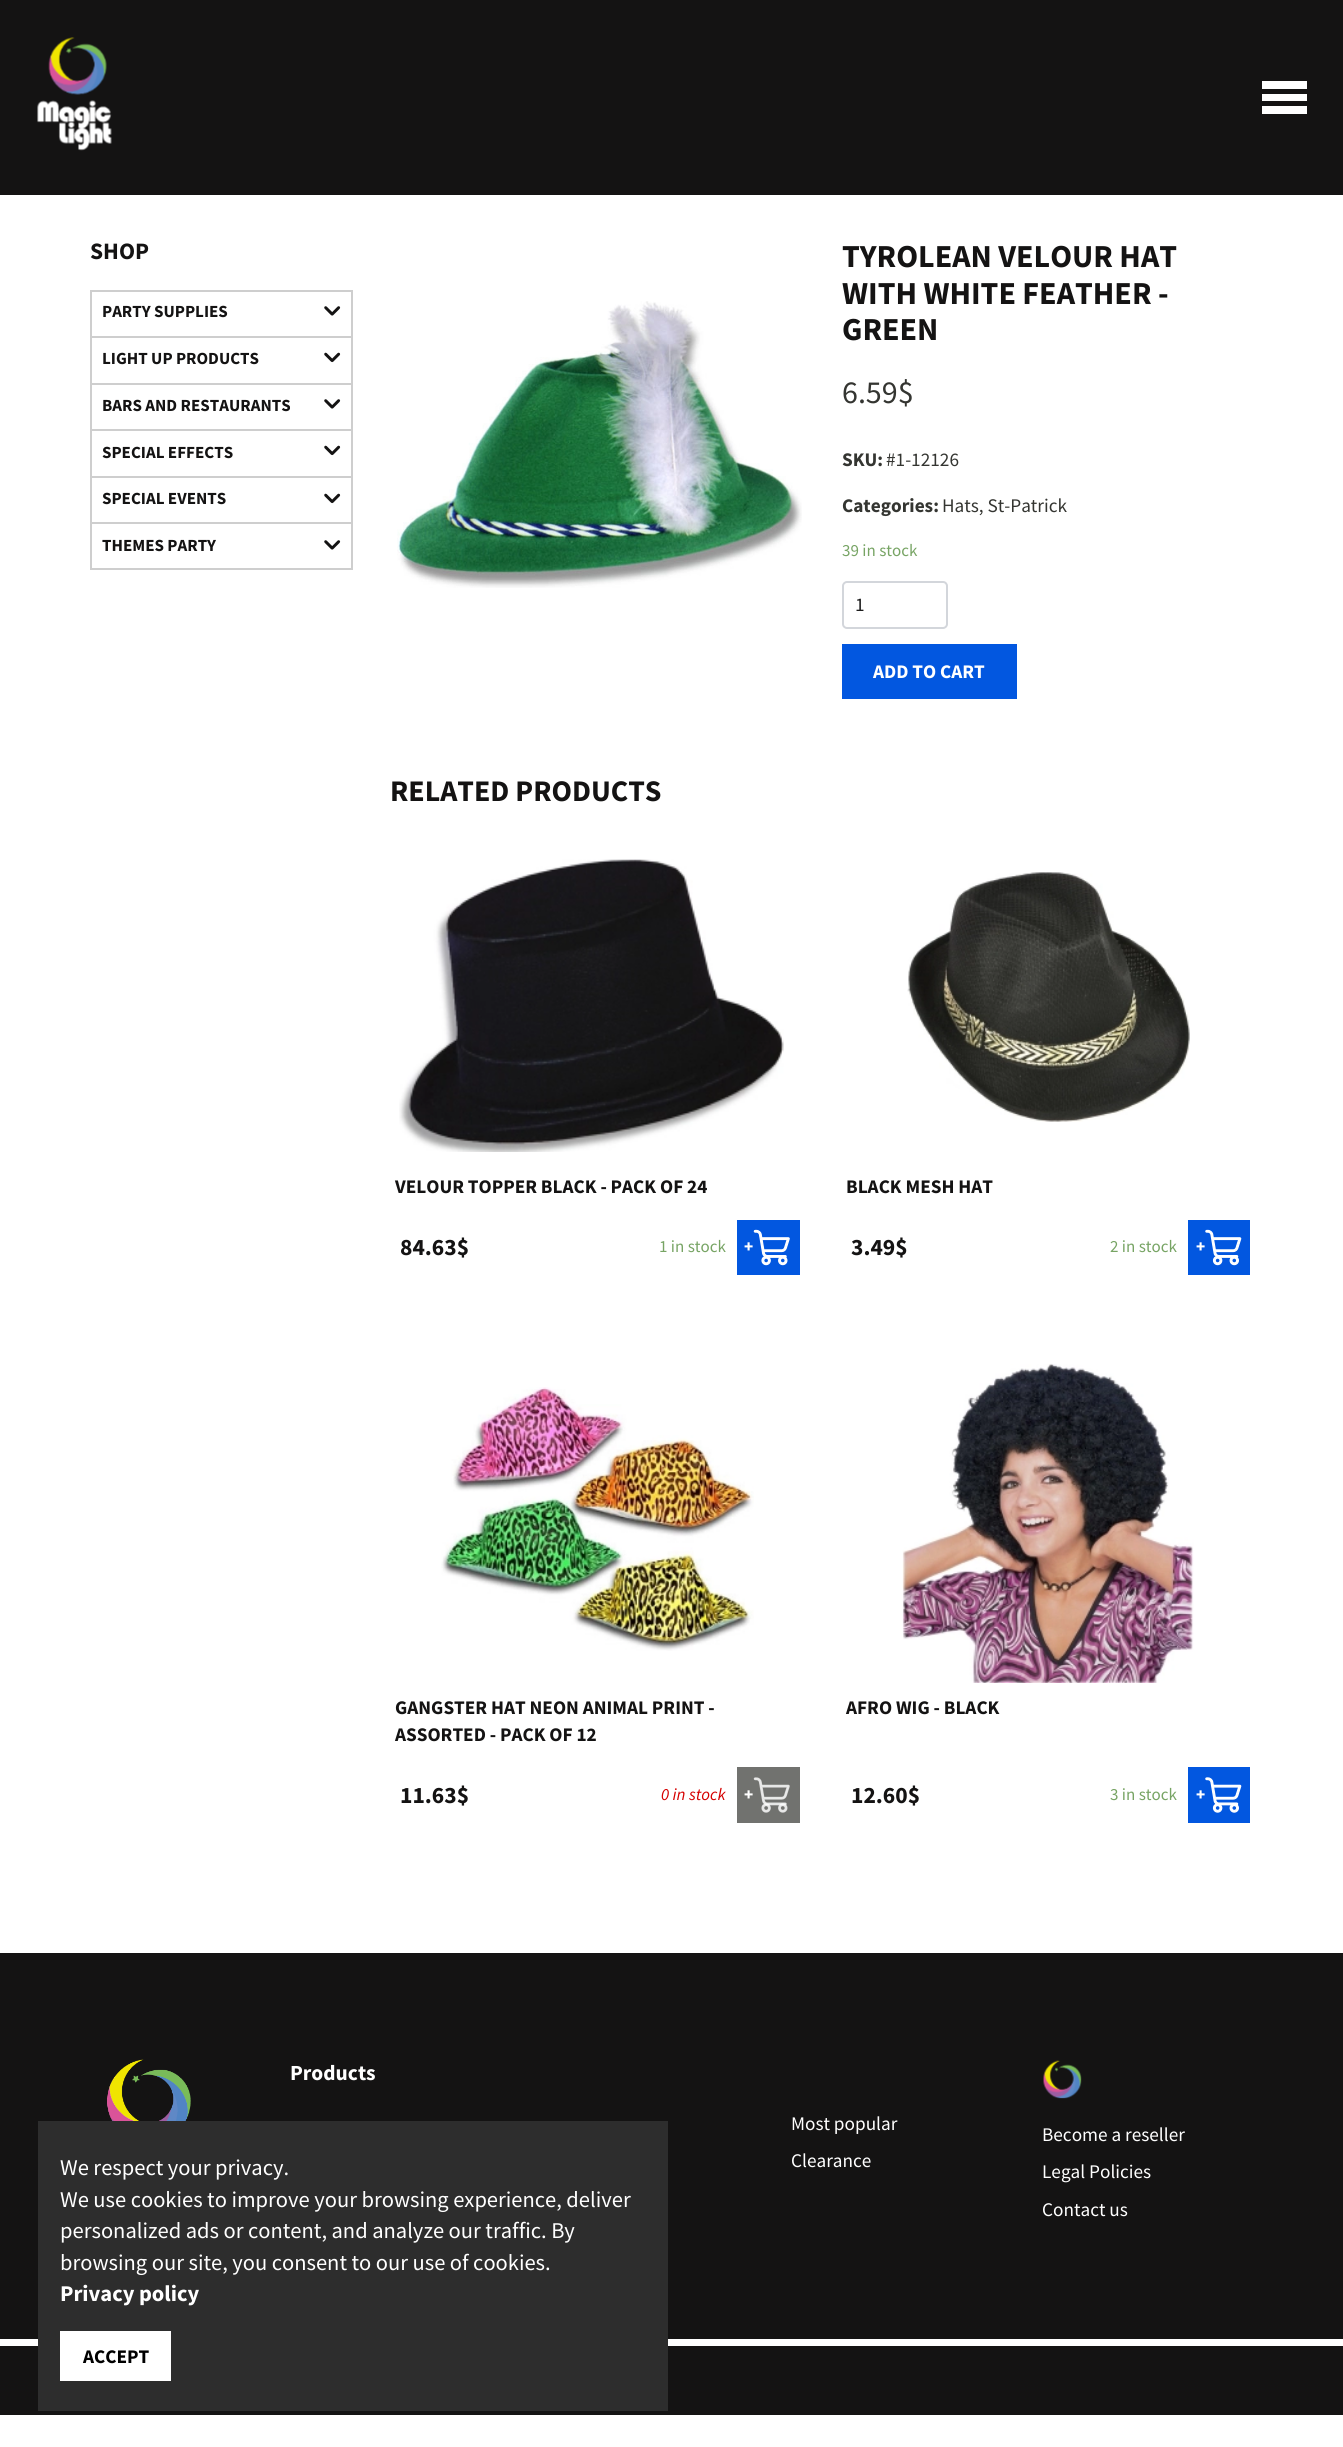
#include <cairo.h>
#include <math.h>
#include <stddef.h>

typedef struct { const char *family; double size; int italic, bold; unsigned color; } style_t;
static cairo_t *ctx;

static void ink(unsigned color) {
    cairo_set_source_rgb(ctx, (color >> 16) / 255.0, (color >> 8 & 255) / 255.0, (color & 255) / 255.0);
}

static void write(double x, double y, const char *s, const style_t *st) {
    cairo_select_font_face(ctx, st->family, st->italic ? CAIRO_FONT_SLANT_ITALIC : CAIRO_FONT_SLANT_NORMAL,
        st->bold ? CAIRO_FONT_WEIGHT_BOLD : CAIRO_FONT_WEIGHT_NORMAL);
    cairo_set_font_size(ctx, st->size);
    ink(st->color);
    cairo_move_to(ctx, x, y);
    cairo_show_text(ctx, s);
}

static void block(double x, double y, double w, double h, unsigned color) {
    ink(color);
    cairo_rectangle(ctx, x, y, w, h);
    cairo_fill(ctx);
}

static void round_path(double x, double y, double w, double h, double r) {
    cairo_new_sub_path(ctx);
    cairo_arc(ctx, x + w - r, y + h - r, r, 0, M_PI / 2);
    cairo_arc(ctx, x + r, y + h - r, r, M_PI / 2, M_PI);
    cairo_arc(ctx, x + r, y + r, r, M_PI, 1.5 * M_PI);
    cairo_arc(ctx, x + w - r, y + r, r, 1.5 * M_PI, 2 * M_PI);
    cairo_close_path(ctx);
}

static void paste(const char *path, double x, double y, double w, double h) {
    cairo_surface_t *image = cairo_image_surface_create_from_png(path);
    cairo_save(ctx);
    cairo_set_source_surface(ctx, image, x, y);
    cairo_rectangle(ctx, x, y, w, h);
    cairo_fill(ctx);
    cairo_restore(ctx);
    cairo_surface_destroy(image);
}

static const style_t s1 = {"Source Sans Pro", 23.5, 0, 1, 0x141313};
static const style_t s2 = {"Source Sans Pro", 17, 0, 1, 0x141313};
static const style_t s3 = {"Source Sans Pro", 32, 0, 1, 0x141313};
static const style_t s4 = {"Source Sans Pro", 32, 0, 0, 0x343531};
static const style_t s5 = {"Source Sans Pro", 19.25, 0, 1, 0x343531};
static const style_t s6 = {"Source Sans Pro", 19.25, 0, 0, 0x343531};
static const style_t s7 = {"Source Sans Pro", 17, 0, 0, 0x77a464};
static const style_t s8 = {"Source Sans Pro", 19.25, 0, 0, 0x1c1c1c};
static const style_t s9 = {"Source Sans Pro", 19.25, 0, 1, 0xffffff};
static const style_t s10 = {"Source Sans Pro", 29.9, 0, 1, 0x141313};
static const style_t s11 = {"Source Sans Pro", 19.25, 0, 1, 0x141313};
static const style_t s12 = {"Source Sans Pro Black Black", 17, 0, 0, 0xffffff};
static const style_t s13 = {"Source Sans Pro", 17, 1, 0, 0xd50000};
static const style_t s14 = {"Source Sans Pro", 21.5, 0, 1, 0xffffff};
static const style_t s15 = {"Source Sans Pro", 19.25, 0, 0, 0xffffff};
static const style_t s16 = {"Source Sans Pro", 22.5, 0, 0, 0xffffff};
static const style_t s17 = {"Source Sans Pro", 22.5, 0, 1, 0xffffff};
static const style_t s18 = {"Source Sans Pro", 19.25, 0, 1, 0x000000};

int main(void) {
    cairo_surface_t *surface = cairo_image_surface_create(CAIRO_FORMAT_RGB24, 1343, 2447);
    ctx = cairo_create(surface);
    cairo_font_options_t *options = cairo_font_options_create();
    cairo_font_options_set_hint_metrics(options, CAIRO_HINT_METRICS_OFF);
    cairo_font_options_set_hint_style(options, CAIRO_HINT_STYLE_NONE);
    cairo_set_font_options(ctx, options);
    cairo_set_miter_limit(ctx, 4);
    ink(0xffffff);
    cairo_paint(ctx);
    block(0, 0, 1343, 195, 0x141313);
    paste("pic1.png", 37, 37, 75, 114);
    block(1262, 81, 45, 8, 0xffffff);
    block(1262, 94, 45, 7, 0xffffff);
    block(1262, 106, 45, 8, 0xffffff);
    write(90, 259, "SHOP", &s1);
    block(90, 290, 263, 2, 0xcecece);
    block(351, 290, 2, 46, 0xcecece);
    block(90, 290, 2, 46, 0xcecece);
    write(102, 317, "PARTY SUPPLIES", &s2);
    paste("pic2.png", 324, 306, 17, 10);
    block(90, 336, 263, 2, 0xcecece);
    block(351, 336, 2, 47, 0xcecece);
    block(90, 336, 2, 47, 0xcecece);
    write(102, 364, "LIGHT UP PRODUCTS", &s2);
    paste("pic3.png", 324, 352, 17, 11);
    block(90, 383, 263, 2, 0xcecece);
    block(351, 383, 2, 46, 0xcecece);
    block(90, 383, 2, 46, 0xcecece);
    write(102, 411, "BARS AND RESTAURANTS", &s2);
    paste("pic2.png", 324, 399, 17, 10);
    block(90, 429, 263, 2, 0xcecece);
    block(351, 429, 2, 47, 0xcecece);
    block(90, 429, 2, 47, 0xcecece);
    write(102, 458, "SPECIAL EFFECTS", &s2);
    paste("pic3.png", 324, 445, 17, 11);
    block(90, 476, 263, 2, 0xcecece);
    block(351, 476, 2, 46, 0xcecece);
    block(90, 476, 2, 46, 0xcecece);
    write(102, 504, "SPECIAL EVENTS", &s2);
    paste("pic3.png", 324, 493, 17, 11);
    cairo_rectangle(ctx, 91, 523, 261, 46);
    ink(0xcecece);
    cairo_stroke(ctx);
    write(102, 551, "THEMES PARTY", &s2);
    paste("pic2.png", 324, 540, 17, 10);
    paste("pic4.png", 397, 301, 405, 287);
    write(842, 267, "TYROLEAN VELOUR HAT", &s3);
    write(842, 304, "WITH WHITE FEATHER -", &s3);
    write(842, 340, "GREEN", &s3);
    write(842, 403, "6.59$", &s4);
    write(842, 466, "SKU:", &s5);
    write(886, 466, "#1-12126", &s6);
    write(842, 512, "Categories:", &s5);
    write(942, 512, "Hats, St-Patrick", &s6);
    write(842, 556, "39 in stock", &s7);
    round_path(843, 582, 104, 46, 4);
    ink(0xd3d6db);
    cairo_stroke(ctx);
    write(855, 611, "1", &s8);
    block(842, 644, 175, 55, 0x0257e0);
    write(873, 678, "ADD TO CART", &s9);
    write(390, 801, "RELATED PRODUCTS", &s10);
    paste("pic5.png", 399, 859, 385, 293);
    write(395, 1193, "VELOUR TOPPER BLACK - PACK OF 24", &s11);
    write(400, 1255, "84.63$", &s1);
    write(659, 1252, "1 in stock", &s7);
    block(737, 1220, 63, 55, 0x0257e0);
    write(744, 1252, "+", &s12);
    paste("pic6.png", 753, 1229, 37, 37);
    paste("pic7.png", 907, 872, 283, 250);
    write(846, 1193, "BLACK MESH HAT", &s11);
    write(851, 1255, "3.49$", &s1);
    write(1110, 1252, "2 in stock", &s7);
    block(1188, 1220, 62, 55, 0x0257e0);
    write(1196, 1252, "+", &s12);
    paste("pic8.png", 1205, 1229, 37, 37);
    paste("pic9.png", 441, 1387, 313, 264);
    write(395, 1714, "GANGSTER HAT NEON ANIMAL PRINT -", &s11);
    write(395, 1741, "ASSORTED - PACK OF 12", &s11);
    write(400, 1803, "11.63$", &s1);
    write(661, 1800, "0 in stock", &s13);
    block(737, 1767, 63, 56, 0x71726f);
    write(744, 1800, "+", &s12);
    paste("pic10.png", 753, 1777, 37, 36);
    paste("pic11.png", 902, 1363, 292, 320);
    write(846, 1714, "AFRO WIG - BLACK", &s11);
    write(851, 1803, "12.60$", &s1);
    write(1110, 1800, "3 in stock", &s7);
    block(1188, 1767, 62, 56, 0x0257e0);
    write(1196, 1800, "+", &s12);
    paste("pic12.png", 1205, 1777, 37, 36);
    block(0, 1953, 1343, 386, 0x141313);
    paste("pic13.png", 107, 2059, 84, 62);
    write(290, 2080, "Products", &s14);
    write(791, 2130, "Most popular", &s15);
    write(791, 2167, "Clearance", &s15);
    paste("pic14.png", 1043, 2060, 39, 39);
    write(1042, 2141, "Become a reseller", &s15);
    write(1042, 2178, "Legal Policies", &s15);
    write(1042, 2216, "Contact us", &s15);
    block(0, 2346, 1343, 69, 0x141313);
    block(38, 2121, 630, 290, 0x2d2d2d);
    write(60, 2175, "We respect your privacy.", &s16);
    write(60, 2207, "We use cookies to improve your browsing experience, deliver", &s16);
    write(60, 2238, "personalized ads or content, and analyze our traffic. By", &s16);
    write(60, 2270, "browsing our site, you consent to our use of cookies.", &s16);
    write(60, 2301, "Privacy policy", &s17);
    block(60, 2331, 111, 50, 0xffffff);
    write(83, 2363, "ACCEPT", &s18);
    cairo_surface_write_to_png(surface, "screenshot.png");
    cairo_font_options_destroy(options);
    cairo_destroy(ctx);
    cairo_surface_destroy(surface);
    return 0;
}
